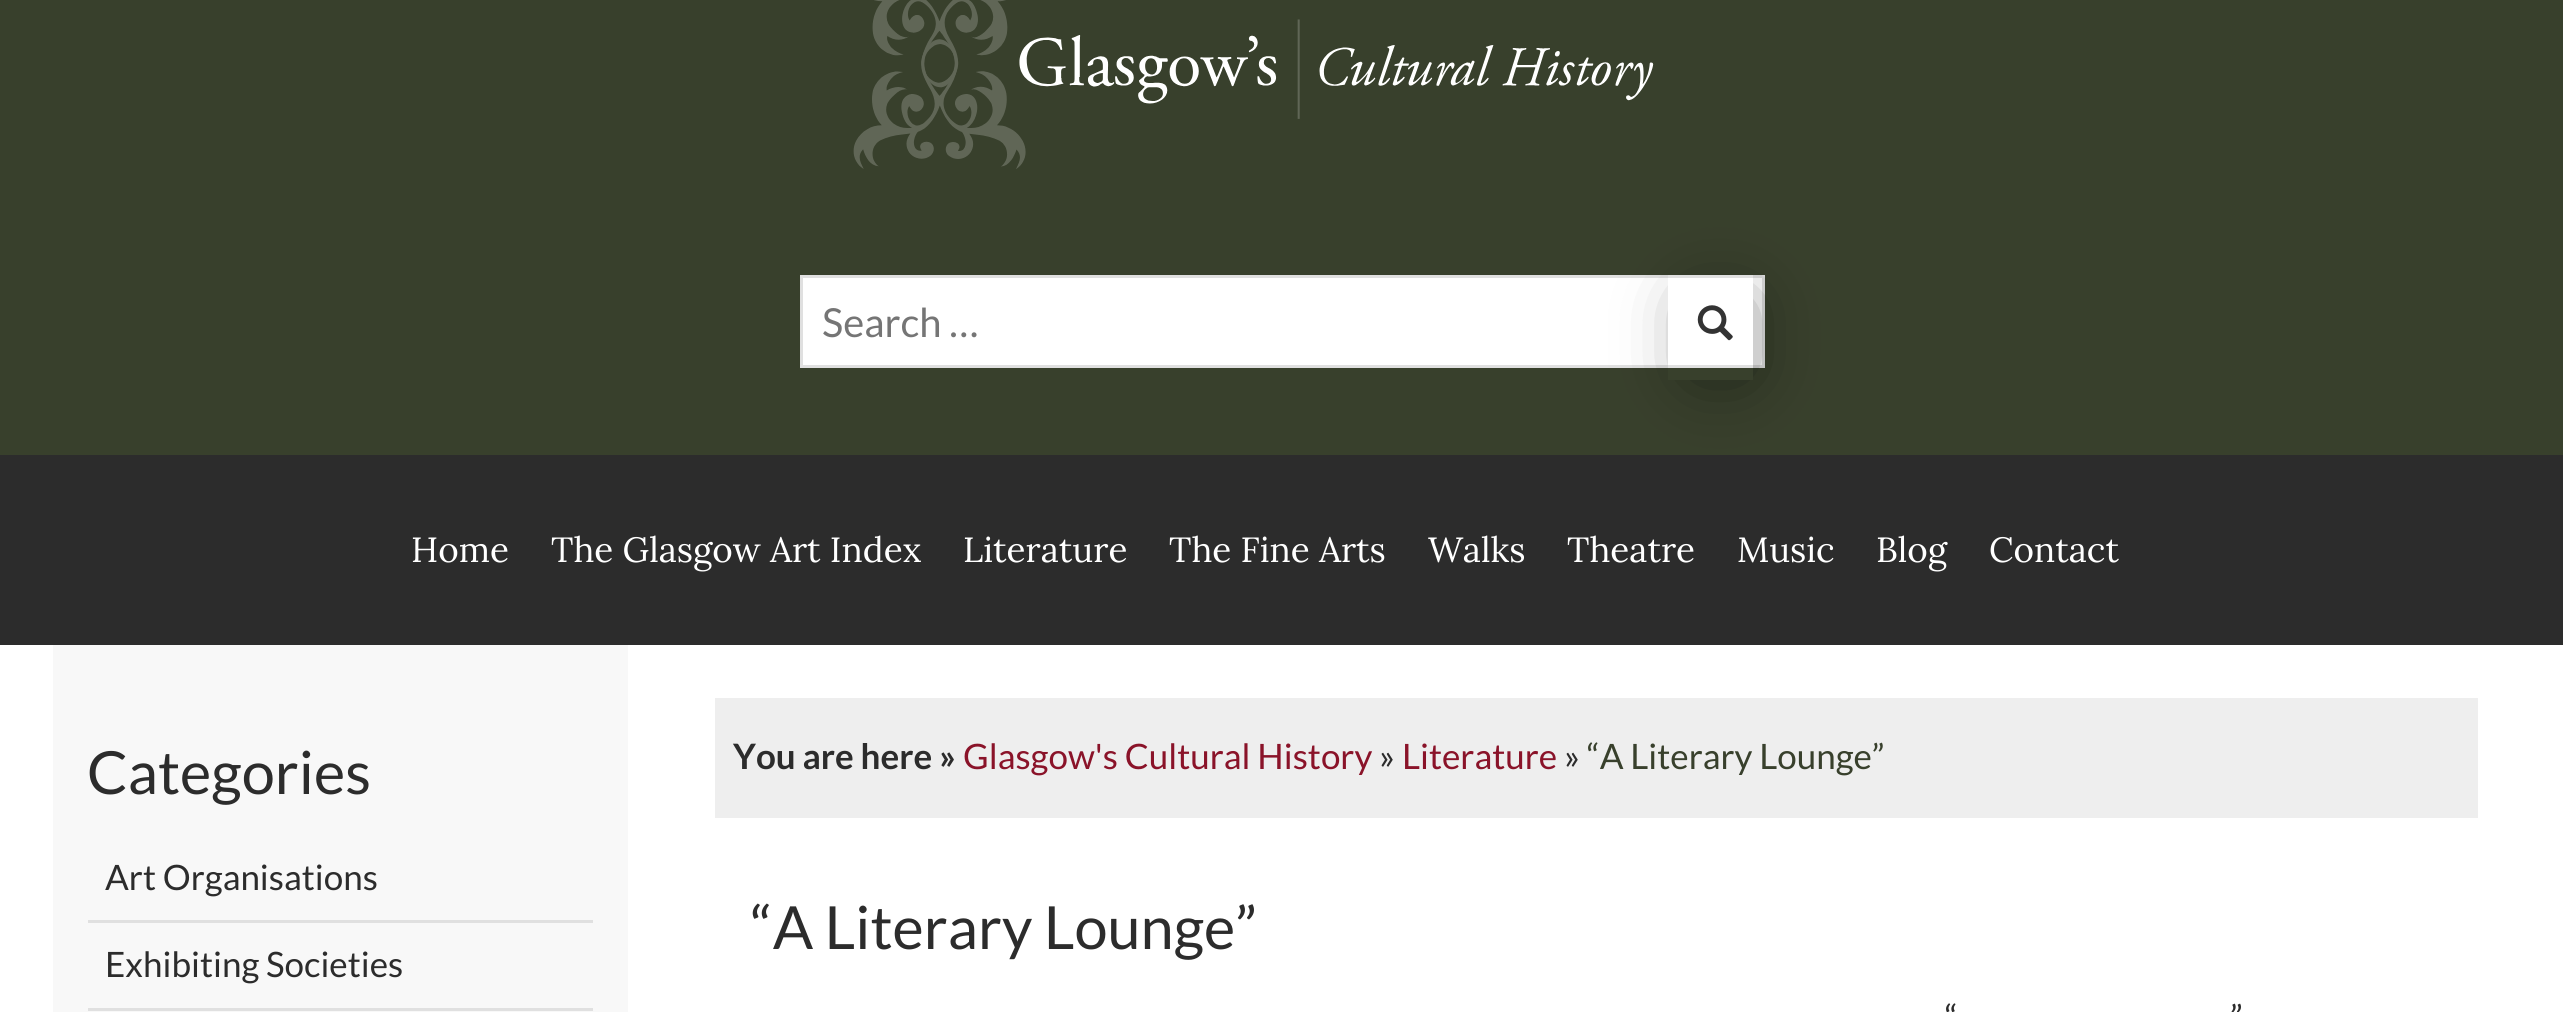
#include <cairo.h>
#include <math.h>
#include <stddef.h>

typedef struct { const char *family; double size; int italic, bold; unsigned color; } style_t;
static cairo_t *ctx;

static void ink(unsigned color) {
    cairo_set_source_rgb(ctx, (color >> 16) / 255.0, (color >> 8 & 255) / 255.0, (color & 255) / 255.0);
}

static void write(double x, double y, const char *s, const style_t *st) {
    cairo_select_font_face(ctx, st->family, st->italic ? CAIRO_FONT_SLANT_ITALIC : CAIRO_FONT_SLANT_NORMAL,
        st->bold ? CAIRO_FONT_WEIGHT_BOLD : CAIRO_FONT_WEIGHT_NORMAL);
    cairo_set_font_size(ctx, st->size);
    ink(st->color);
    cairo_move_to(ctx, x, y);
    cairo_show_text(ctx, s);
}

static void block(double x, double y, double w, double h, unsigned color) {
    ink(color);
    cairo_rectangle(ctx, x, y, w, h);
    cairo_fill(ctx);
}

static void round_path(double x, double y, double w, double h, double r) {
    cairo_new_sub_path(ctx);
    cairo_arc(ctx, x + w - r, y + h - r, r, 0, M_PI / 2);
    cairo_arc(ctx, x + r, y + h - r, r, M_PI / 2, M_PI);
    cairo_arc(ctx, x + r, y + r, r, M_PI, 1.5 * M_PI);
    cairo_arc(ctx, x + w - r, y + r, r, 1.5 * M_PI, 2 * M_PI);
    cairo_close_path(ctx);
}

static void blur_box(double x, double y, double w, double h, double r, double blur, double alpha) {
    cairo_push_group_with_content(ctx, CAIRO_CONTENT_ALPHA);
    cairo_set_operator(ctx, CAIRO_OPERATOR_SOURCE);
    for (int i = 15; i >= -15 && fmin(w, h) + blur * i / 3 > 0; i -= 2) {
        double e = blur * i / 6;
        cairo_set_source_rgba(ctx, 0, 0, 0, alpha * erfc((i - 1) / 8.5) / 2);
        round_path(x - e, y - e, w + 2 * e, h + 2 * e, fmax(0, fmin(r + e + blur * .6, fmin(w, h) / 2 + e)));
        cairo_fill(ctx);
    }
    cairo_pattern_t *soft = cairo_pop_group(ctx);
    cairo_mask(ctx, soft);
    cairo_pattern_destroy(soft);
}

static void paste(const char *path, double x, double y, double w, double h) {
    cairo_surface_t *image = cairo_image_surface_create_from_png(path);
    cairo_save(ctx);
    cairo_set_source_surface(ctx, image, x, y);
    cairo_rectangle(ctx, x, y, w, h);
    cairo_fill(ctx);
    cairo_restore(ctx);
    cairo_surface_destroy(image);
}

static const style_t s1 = {"Lato", 40, 0, 0, 0x757575};
static const style_t s2 = {"Lora", 35, 0, 0, 0xffffff};
static const style_t s3 = {"Lato", 59.5, 0, 0, 0x2c2c2c};
static const style_t s4 = {"Lato", 35, 0, 0, 0x2c2c2c};
static const style_t s5 = {"Lato", 35, 0, 1, 0x2c2c2c};
static const style_t s6 = {"Lato", 35, 0, 0, 0x8a1329};
static const style_t s7 = {"Lato", 35, 0, 0, 0x38402c};

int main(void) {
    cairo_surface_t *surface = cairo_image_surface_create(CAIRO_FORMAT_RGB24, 2563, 1012);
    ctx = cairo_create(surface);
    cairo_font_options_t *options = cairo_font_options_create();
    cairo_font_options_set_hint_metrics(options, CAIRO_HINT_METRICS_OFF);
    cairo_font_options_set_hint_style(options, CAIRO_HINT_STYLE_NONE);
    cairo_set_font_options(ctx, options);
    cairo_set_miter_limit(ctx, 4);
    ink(0xffffff);
    cairo_paint(ctx);
    block(0, 0, 2563, 455, 0x38402c);
    paste("pic1.png", 853, 0, 801, 169);
    ink(0xffffff);
    cairo_rectangle(ctx, 801.5, 276.5, 962, 90);
    cairo_fill_preserve(ctx);
    ink(0xe0e0e0);
    cairo_set_line_width(ctx, 3);
    cairo_stroke(ctx);
    write(822, 337, "Search …", &s1);
    block(0, 455, 2563, 190, 0x2c2c2c);
    cairo_save(ctx);
    cairo_set_fill_rule(ctx, CAIRO_FILL_RULE_EVEN_ODD);
    cairo_new_path(ctx);
    cairo_move_to(ctx, 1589, 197);
    cairo_line_to(ctx, 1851, 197);
    cairo_line_to(ctx, 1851, 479);
    cairo_line_to(ctx, 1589, 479);
    cairo_close_path(ctx);
    cairo_move_to(ctx, 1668, 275);
    cairo_line_to(ctx, 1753, 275);
    cairo_line_to(ctx, 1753, 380);
    cairo_line_to(ctx, 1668, 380);
    cairo_close_path(ctx);
    cairo_clip(ctx);
    ink(0x000000);
    blur_box(1695, 303, 50, 70, 0, 35, 0.51);
    cairo_restore(ctx);
    paste("pic2.png", 1697, 305, 36, 36);
    write(411, 562, "Home", &s2);
    write(551, 562, "The Glasgow Art Index", &s2);
    write(963, 562, "Literature", &s2);
    write(1169, 562, "The Fine Arts", &s2);
    write(1428, 562, "Walks", &s2);
    write(1567, 562, "Theatre", &s2);
    write(1737, 562, "Music", &s2);
    write(1876, 562, "Blog", &s2);
    write(1989, 562, "Contact", &s2);
    block(53, 645, 575, 367, 0xf8f8f8);
    write(87, 794, "Categories", &s3);
    block(88, 920, 505, 3, 0xe0e0e0);
    write(105, 890, "Art Organisations", &s4);
    block(88, 1008, 505, 3, 0xe0e0e0);
    write(105, 977, "Exhibiting Societies", &s4);
    block(715, 698, 1763, 120, 0xeeeeee);
    write(733, 769, "You are here »", &s5);
    write(963, 769, "Glasgow's Cultural History", &s6);
    write(1379, 769, "»", &s4);
    write(1402, 769, "Literature", &s6);
    write(1564, 769, "»", &s4);
    write(1587, 769, "“A Literary Lounge”", &s7);
    write(751, 949, "“A Literary Lounge”", &s3);
    write(1945, 1030, "“", &s4);
    write(2230, 1030, "”", &s4);
    cairo_surface_write_to_png(surface, "screenshot.png");
    cairo_font_options_destroy(options);
    cairo_destroy(ctx);
    cairo_surface_destroy(surface);
    return 0;
}
